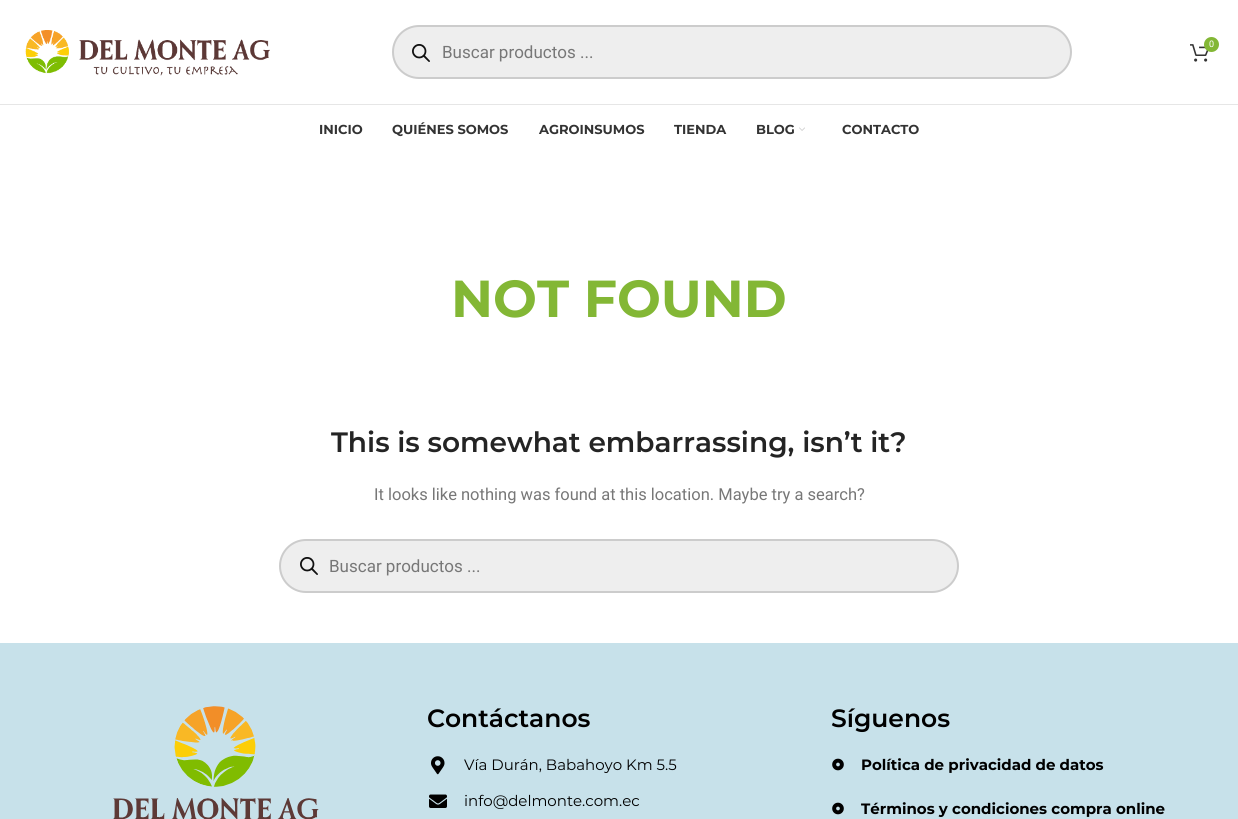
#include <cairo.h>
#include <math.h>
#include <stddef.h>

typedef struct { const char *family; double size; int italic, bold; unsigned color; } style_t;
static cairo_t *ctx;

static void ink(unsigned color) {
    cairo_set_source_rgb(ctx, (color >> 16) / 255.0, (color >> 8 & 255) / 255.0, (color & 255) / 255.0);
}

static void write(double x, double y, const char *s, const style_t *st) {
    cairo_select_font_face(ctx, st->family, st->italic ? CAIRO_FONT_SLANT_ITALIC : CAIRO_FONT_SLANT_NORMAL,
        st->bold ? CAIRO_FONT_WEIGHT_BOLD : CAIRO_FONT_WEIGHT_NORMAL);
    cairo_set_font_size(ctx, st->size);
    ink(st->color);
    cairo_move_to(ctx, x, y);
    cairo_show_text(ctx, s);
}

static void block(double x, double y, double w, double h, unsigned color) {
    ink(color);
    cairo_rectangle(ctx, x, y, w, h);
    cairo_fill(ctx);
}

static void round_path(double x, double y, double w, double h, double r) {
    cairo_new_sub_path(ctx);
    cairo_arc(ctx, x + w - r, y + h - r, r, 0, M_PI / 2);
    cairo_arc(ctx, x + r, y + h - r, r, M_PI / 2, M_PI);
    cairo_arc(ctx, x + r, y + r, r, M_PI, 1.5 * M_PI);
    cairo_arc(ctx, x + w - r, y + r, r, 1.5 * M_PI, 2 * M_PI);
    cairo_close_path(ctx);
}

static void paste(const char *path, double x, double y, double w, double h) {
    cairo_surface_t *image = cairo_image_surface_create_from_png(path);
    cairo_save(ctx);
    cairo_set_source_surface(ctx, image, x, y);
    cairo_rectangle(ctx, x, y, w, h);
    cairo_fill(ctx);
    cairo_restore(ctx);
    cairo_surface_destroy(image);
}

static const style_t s1 = {"Roboto", 9, 0, 0, 0xffffff};
static const style_t s2 = {"Roboto", 17, 0, 0, 0x777777};
static const style_t s3 = {"Montserrat", 13, 0, 1, 0x333333};
static const style_t s4 = {"Montserrat", 52, 0, 1, 0x83b735};
static const style_t s5 = {"Montserrat SemiBold", 28, 0, 0, 0x242424};
static const style_t s6 = {"Roboto", 16.5, 0, 0, 0x777777};
static const style_t s7 = {"Montserrat SemiBold", 25, 0, 0, 0x000000};
static const style_t s8 = {"Montserrat", 15, 0, 0, 0x000000};
static const style_t s9 = {"Montserrat", 15, 0, 1, 0x000000};

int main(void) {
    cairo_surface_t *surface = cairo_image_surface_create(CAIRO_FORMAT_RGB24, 1238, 819);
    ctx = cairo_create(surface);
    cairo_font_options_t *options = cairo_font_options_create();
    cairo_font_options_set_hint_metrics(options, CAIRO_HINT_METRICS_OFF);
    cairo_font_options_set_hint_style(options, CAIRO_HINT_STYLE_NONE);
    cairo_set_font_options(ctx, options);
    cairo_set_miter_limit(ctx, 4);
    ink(0xffffff);
    cairo_paint(ctx);
    block(0, 104, 1238, 1, 0xe6e6e6);
    paste("pic1.png", 25, 30, 245, 46);
    paste("pic2.png", 1190, 44, 19, 18);
    ink(0x83b735);
    cairo_arc(ctx, 1211.5, 44.5, 7.5, 0, 2 * M_PI);
    cairo_fill(ctx);
    write(1209, 47, "0", &s1);
    ink(0xeeeeee);
    round_path(393, 26, 678, 52, 26);
    cairo_fill_preserve(ctx);
    ink(0xcccccc);
    cairo_stroke(ctx);
    paste("pic3.png", 412, 44, 18, 18);
    write(442, 58, "Buscar productos ...", &s2);
    write(319, 134, "INICIO", &s3);
    write(392, 134, "QUIÉNES SOMOS", &s3);
    write(539, 134, "AGROINSUMOS", &s3);
    write(674, 134, "TIENDA", &s3);
    write(756, 134, "BLOG", &s3);
    paste("pic4.png", 799, 127, 6, 4);
    write(842, 134, "CONTACTO", &s3);
    write(451, 317, "NOT FOUND", &s4);
    write(331, 452, "This is somewhat embarrassing, isn’t it?", &s5);
    write(374, 500, "It looks like nothing was found at this location. Maybe try a search?", &s6);
    ink(0xeeeeee);
    round_path(280, 540, 678, 52, 26);
    cairo_fill_preserve(ctx);
    ink(0xcccccc);
    cairo_stroke(ctx);
    paste("pic3.png", 300, 557, 18, 18);
    write(329, 572, "Buscar productos ...", &s2);
    block(0, 643, 1238, 176, 0xc7e1ea);
    paste("pic5.png", 113, 706, 206, 113);
    write(427, 727, "Contáctanos", &s7);
    paste("pic6.png", 431, 756, 14, 19);
    write(464, 770, "Vía Durán, Babahoyo Km 5.5", &s8);
    paste("pic7.png", 429, 794, 18, 14);
    write(464, 806, "info@delmonte.com.ec", &s8);
    write(831, 727, "Síguenos", &s7);
    paste("pic8.png", 832, 758, 12, 13);
    write(861, 770, "Política de privacidad de datos", &s9);
    paste("pic8.png", 832, 802, 12, 13);
    write(861, 814, "Términos y condiciones compra online", &s9);
    cairo_surface_write_to_png(surface, "screenshot.png");
    cairo_font_options_destroy(options);
    cairo_destroy(ctx);
    cairo_surface_destroy(surface);
    return 0;
}
